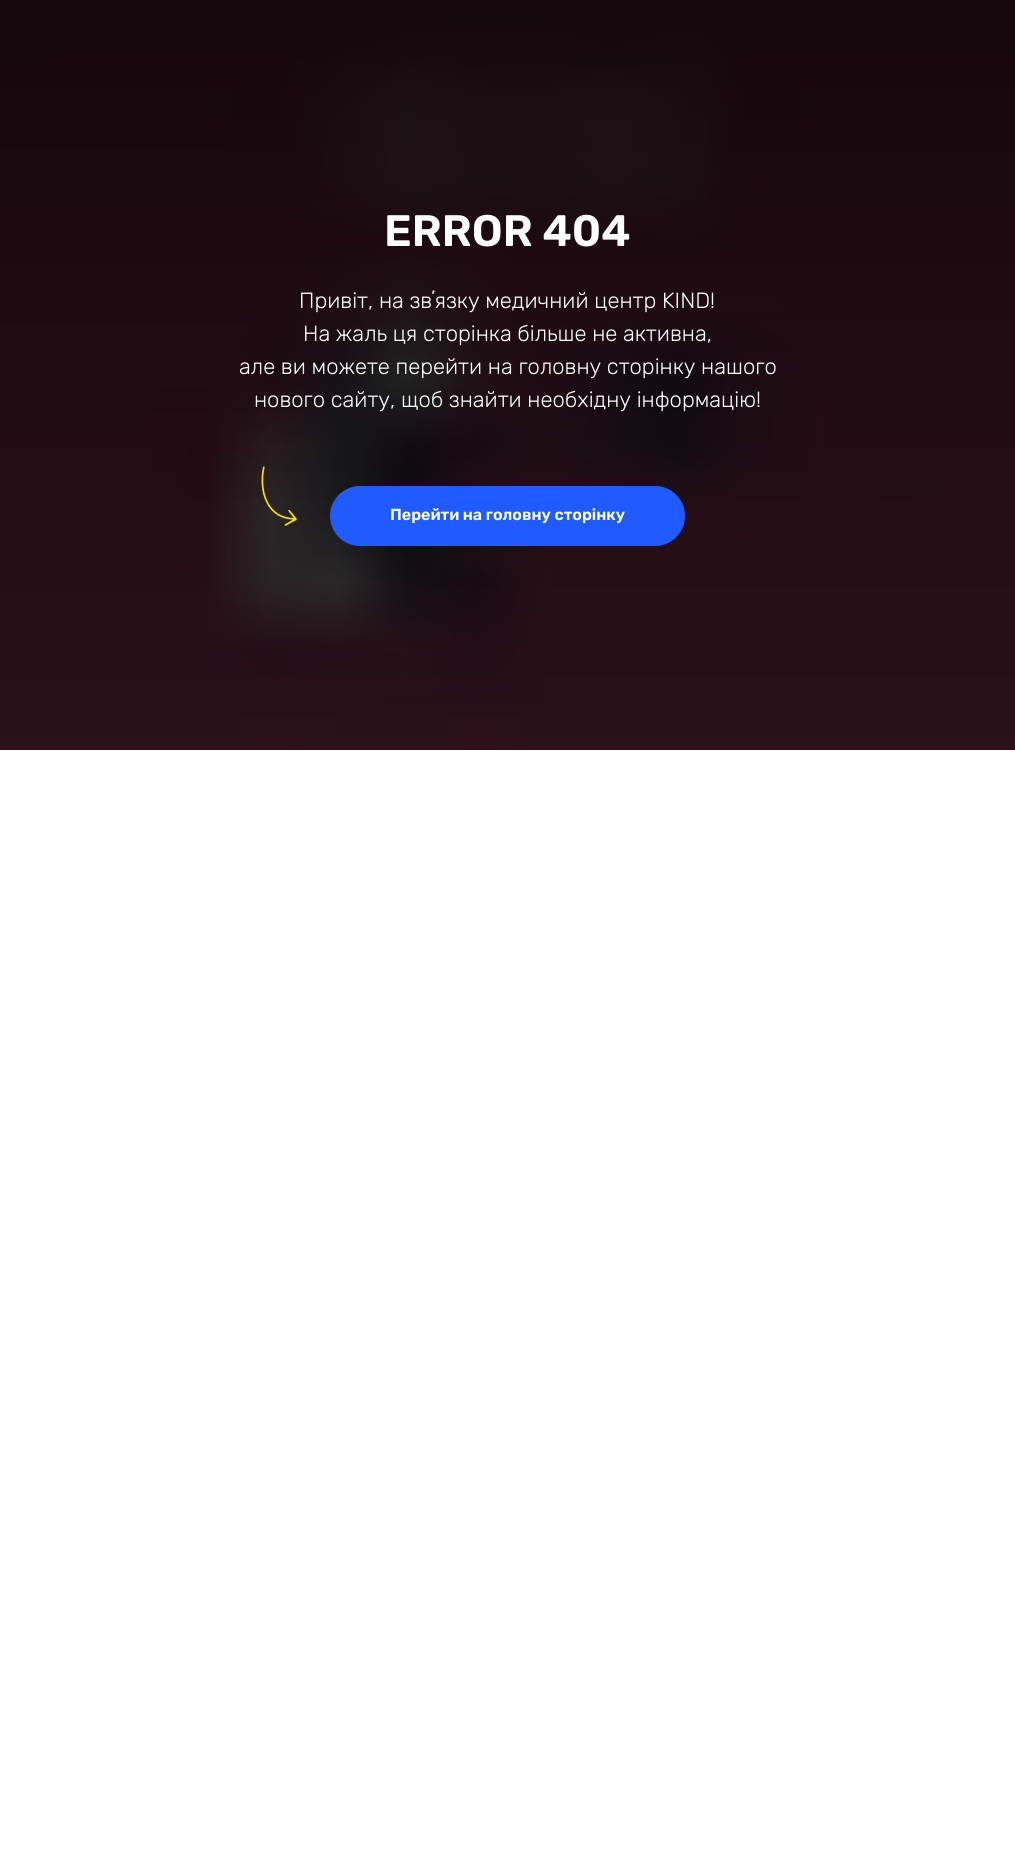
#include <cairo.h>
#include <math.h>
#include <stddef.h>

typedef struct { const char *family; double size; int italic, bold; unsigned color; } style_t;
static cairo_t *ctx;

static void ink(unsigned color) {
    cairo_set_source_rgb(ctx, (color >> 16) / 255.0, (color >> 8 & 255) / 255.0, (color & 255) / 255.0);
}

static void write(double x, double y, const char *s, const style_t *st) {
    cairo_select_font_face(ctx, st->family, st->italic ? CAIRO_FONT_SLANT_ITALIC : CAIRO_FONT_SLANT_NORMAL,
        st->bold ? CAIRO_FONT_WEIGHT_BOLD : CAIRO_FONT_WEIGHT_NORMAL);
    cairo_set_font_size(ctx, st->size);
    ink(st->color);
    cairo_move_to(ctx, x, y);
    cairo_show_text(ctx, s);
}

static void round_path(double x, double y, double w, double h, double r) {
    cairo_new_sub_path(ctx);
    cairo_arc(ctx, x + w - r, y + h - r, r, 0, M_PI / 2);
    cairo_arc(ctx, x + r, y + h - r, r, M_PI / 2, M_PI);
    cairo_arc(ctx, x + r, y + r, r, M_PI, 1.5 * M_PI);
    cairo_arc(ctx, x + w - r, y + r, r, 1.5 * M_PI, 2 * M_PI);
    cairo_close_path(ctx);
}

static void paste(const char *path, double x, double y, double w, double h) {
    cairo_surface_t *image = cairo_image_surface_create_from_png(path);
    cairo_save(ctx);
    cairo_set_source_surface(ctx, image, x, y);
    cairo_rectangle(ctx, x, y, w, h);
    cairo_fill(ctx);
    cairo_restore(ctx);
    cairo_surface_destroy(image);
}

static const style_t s1 = {"Rubik SemiBold", 44, 0, 0, 0xffffff};
static const style_t s2 = {"Rubik Light", 22, 0, 0, 0xffffff};
static const style_t s3 = {"Rubik SemiBold", 16, 0, 0, 0xffffff};

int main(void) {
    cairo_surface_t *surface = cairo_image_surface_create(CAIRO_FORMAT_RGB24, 1015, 1849);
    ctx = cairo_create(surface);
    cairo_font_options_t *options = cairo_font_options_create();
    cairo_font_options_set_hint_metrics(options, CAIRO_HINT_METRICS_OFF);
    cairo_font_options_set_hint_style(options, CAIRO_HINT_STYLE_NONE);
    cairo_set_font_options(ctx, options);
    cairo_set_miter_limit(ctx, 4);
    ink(0xffffff);
    cairo_paint(ctx);
    paste("pic1.png", 0, 0, 1015, 750);
    write(384, 246, "ERROR 404", &s1);
    write(299, 308, "Привіт, на звʼязку медичний центр KIND!", &s2);
    write(303, 341, "На жаль ця сторінка більше не активна,", &s2);
    write(239, 374, "але ви можете перейти на головну сторінку нашого", &s2);
    write(254, 407, "нового сайту, щоб знайти необхідну інформацію!", &s2);
    paste("pic2.png", 261, 466, 36, 60);
    ink(0x1f5bff);
    round_path(330, 486, 355, 60, 30);
    cairo_fill(ctx);
    write(390, 520, "Перейти на головну сторінку", &s3);
    cairo_surface_write_to_png(surface, "screenshot.png");
    cairo_font_options_destroy(options);
    cairo_destroy(ctx);
    cairo_surface_destroy(surface);
    return 0;
}
